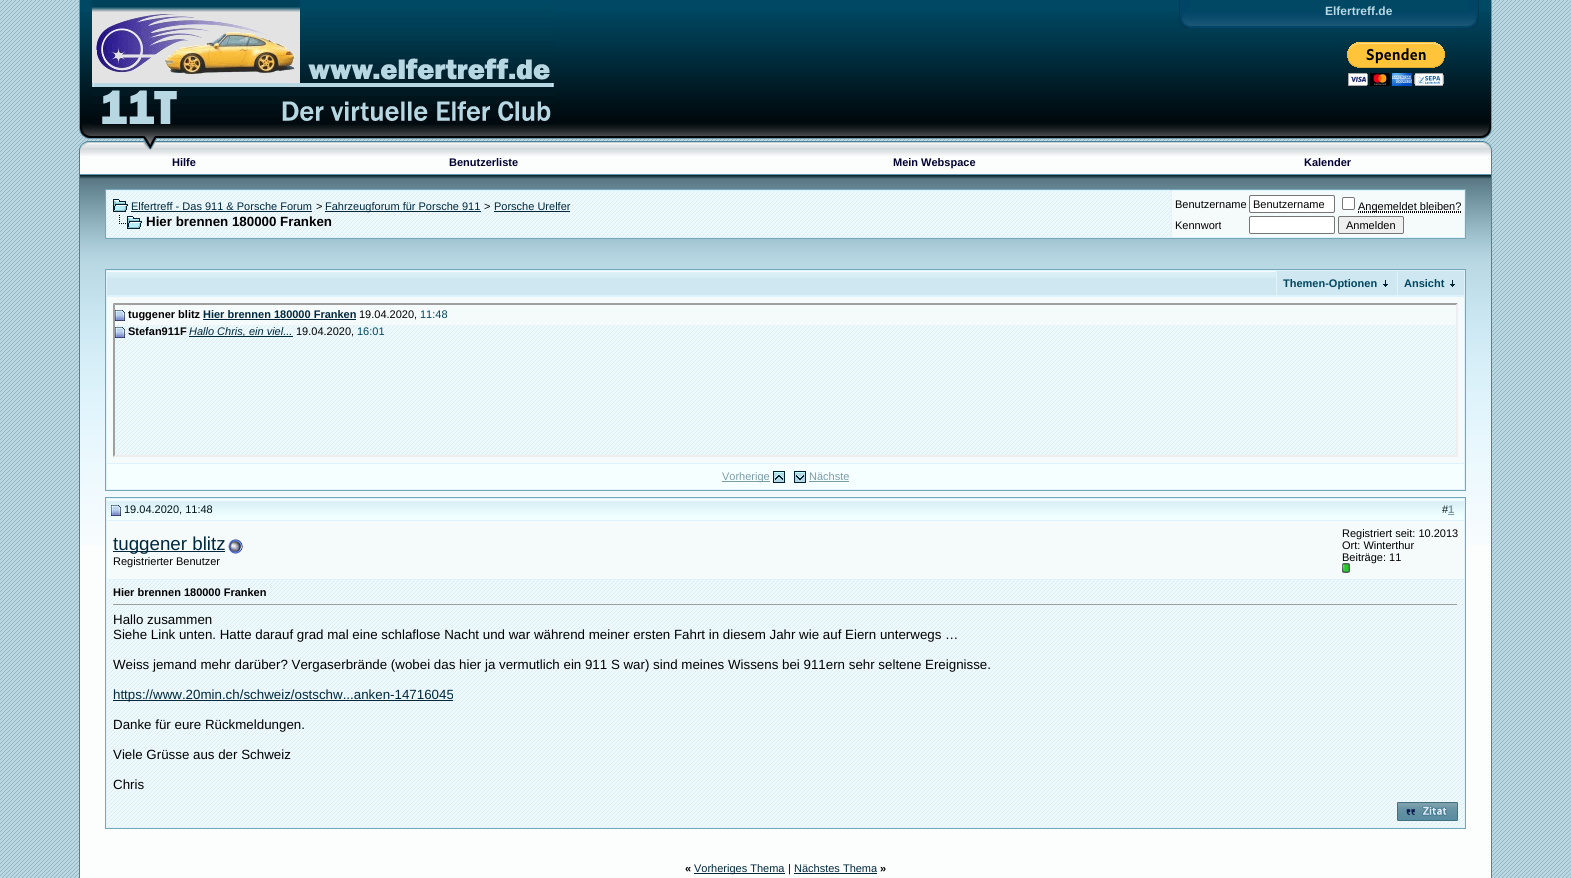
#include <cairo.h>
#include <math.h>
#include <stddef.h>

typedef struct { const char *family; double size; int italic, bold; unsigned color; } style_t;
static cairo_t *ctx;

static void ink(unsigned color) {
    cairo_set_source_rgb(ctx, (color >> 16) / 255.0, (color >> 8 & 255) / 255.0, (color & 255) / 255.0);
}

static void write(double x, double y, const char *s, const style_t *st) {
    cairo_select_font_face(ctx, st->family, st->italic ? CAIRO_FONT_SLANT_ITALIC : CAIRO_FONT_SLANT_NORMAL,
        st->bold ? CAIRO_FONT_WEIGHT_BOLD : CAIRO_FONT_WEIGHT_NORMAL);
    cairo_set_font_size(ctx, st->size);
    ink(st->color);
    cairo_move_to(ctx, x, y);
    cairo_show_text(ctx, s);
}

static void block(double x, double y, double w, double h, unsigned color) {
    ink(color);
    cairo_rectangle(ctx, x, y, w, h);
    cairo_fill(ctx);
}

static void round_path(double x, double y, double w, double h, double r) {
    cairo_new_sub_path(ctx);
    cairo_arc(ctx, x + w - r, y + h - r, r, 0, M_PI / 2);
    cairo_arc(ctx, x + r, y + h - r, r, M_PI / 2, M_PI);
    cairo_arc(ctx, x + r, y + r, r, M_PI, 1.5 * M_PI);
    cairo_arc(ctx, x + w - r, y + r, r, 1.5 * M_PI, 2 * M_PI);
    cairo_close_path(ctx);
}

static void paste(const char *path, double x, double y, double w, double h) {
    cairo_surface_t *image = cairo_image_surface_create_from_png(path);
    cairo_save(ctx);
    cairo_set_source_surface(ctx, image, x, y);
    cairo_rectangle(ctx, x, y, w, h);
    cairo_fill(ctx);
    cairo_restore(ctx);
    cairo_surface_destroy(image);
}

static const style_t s1 = {"Liberation Sans", 12, 0, 1, 0xb8d8e4};
static const style_t s2 = {"Liberation Sans", 11, 0, 1, 0x000033};
static const style_t s3 = {"Liberation Sans", 11, 0, 0, 0x00283d};
static const style_t s4 = {"Liberation Sans", 11, 0, 0, 0x000000};
static const style_t s5 = {"Liberation Sans", 13.33, 0, 1, 0x000000};
static const style_t s6 = {"Liberation Sans", 11, 0, 1, 0x00465f};
static const style_t s7 = {"Liberation Sans", 11, 0, 1, 0x000000};
static const style_t s8 = {"Liberation Sans", 11, 0, 1, 0x00283d};
static const style_t s9 = {"Liberation Sans", 11, 0, 0, 0x00465f};
static const style_t s10 = {"Liberation Sans", 11, 1, 0, 0x00283d};
static const style_t s11 = {"Liberation Sans", 11, 0, 0, 0x7a9ca8};
static const style_t s12 = {"Liberation Sans", 11, 0, 0, 0x001117};
static const style_t s13 = {"Liberation Sans", 11, 0, 1, 0x7a9ca8};
static const style_t s14 = {"Liberation Sans", 18.75, 0, 0, 0x00283d};
static const style_t s15 = {"Liberation Sans", 13.33, 0, 0, 0x000000};
static const style_t s16 = {"Liberation Sans", 13.33, 0, 0, 0x00283d};

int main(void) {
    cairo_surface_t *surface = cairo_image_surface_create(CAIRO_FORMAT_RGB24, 1571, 878);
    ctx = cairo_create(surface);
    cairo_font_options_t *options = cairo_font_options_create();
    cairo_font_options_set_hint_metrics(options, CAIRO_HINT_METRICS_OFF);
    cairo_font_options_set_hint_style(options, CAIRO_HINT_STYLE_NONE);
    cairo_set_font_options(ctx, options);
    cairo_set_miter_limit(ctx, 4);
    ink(0xffffff);
    cairo_paint(ctx);
    paste("pic1.png", 0, 0, 1571, 878);
    block(82, 0, 1407, 12, 0x004863);
    paste("pic2.png", 82, 12, 1407, 116);
    paste("pic3.png", 79, 0, 3, 128);
    paste("pic4.png", 92, 0, 462, 125);
    paste("pic5.png", 1190, 12, 278, 16);
    paste("pic6.png", 1179, 0, 11, 28);
    write(1325, 15, "Elfertreff.de", &s1);
    paste("pic7.png", 1347, 42, 98, 44);
    paste("pic8.png", 1468, 0, 11, 28);
    paste("pic9.png", 1489, 0, 3, 128);
    paste("pic10.png", 90, 128, 1391, 22);
    paste("pic11.png", 79, 128, 11, 22);
    paste("pic12.png", 143, 136, 14, 14);
    paste("pic13.png", 1481, 128, 11, 22);
    block(81, 156, 1410, 18, 0xfcfdfd);
    paste("pic14.png", 81, 150, 1410, 6);
    paste("pic15.png", 79, 150, 2, 24);
    write(172, 166, "Hilfe", &s2);
    write(449, 166, "Benutzerliste", &s2);
    write(893, 166, "Mein Webspace", &s2);
    write(1304, 166, "Kalender", &s2);
    paste("pic16.png", 1491, 150, 1, 24);
    block(80, 545, 1411, 333, 0xfcfdfd);
    paste("pic17.png", 80, 174, 1411, 371);
    block(1491, 174, 1, 704, 0x49859c);
    block(79, 174, 1, 704, 0x49859c);
    ink(0xdef3fb);
    cairo_rectangle(ctx, 105.5, 189.5, 1360, 49);
    cairo_fill_preserve(ctx);
    ink(0x76a7b9);
    cairo_set_line_width(ctx, 1);
    cairo_stroke(ctx);
    paste("pic18.png", 107, 191, 1064, 46);
    paste("pic19.png", 113, 199, 15, 13);
    write(131, 210, "Elfertreff - Das 911 & Porsche Forum", &s3);
    block(131, 211, 181, 1, 0x00283d);
    write(316, 210, ">", &s4);
    block(325, 211, 156, 1, 0x00283d);
    write(325, 210, "Fahrzeugforum für Porsche 911", &s3);
    write(484, 210, ">", &s4);
    write(494, 210, "Porsche Urelfer", &s3);
    block(494, 211, 76, 1, 0x00283d);
    paste("pic20.png", 119, 215, 23, 14);
    write(146, 226, "Hier brennen 180000 Franken", &s5);
    block(1172, 191, 292, 46, 0xf5fafa);
    write(1175, 208, "Benutzername", &s4);
    ink(0xffffff);
    round_path(1249.5, 195.5, 85, 17, 1.5);
    cairo_fill_preserve(ctx);
    ink(0x767676);
    cairo_stroke(ctx);
    write(1253, 208, "Benutzername", &s4);
    ink(0xffffff);
    round_path(1342.5, 197.5, 12, 12, 1.5);
    cairo_fill_preserve(ctx);
    ink(0x767676);
    cairo_stroke(ctx);
    cairo_new_path(ctx);
    cairo_move_to(ctx, 1358, 212.5);
    cairo_line_to(ctx, 1461, 212.5);
    ink(0x000000);
    cairo_set_dash(ctx, (double[]){1, 1}, 2, 0);
    cairo_stroke(ctx);
    cairo_new_path(ctx);
    cairo_move_to(ctx, 1358, 211.5);
    cairo_line_to(ctx, 1461.5, 211.5);
    cairo_stroke(ctx);
    write(1358, 210, "Angemeldet bleiben?", &s4);
    write(1175, 229, "Kennwort", &s4);
    ink(0xffffff);
    round_path(1249.5, 216.5, 85, 17, 1.5);
    cairo_fill_preserve(ctx);
    ink(0x767676);
    cairo_set_dash(ctx, NULL, 0, 0);
    cairo_stroke(ctx);
    ink(0xefefef);
    round_path(1338.5, 216.5, 65, 17, 1.5);
    cairo_fill_preserve(ctx);
    ink(0x767676);
    cairo_stroke(ctx);
    write(1346, 229, "Anmelden", &s4);
    block(106, 270, 1359, 220, 0xdef3fb);
    block(105, 269, 1361, 1, 0x76a7b9);
    block(1465, 269, 1, 222, 0x76a7b9);
    block(105, 269, 1, 27, 0x76a7b9);
    block(107, 278, 1169, 17, 0xcfe7f0);
    paste("pic21.png", 107, 271, 1169, 7);
    block(1277, 271, 120, 24, 0xcfe7f0);
    write(1283, 287, "Themen-Optionen", &s6);
    paste("pic22.png", 1383, 280, 5, 7);
    block(1398, 271, 66, 24, 0xcfe7f0);
    write(1404, 287, "Ansicht", &s6);
    paste("pic22.png", 1450, 280, 5, 7);
    block(105, 490, 1361, 1, 0x76a7b9);
    block(105, 296, 1, 195, 0x76a7b9);
    block(107, 297, 1357, 166, 0xf5fafa);
    paste("pic23.png", 113, 303, 1345, 154);
    ink(0x9f9f9f);
    cairo_new_path(ctx);
    cairo_move_to(ctx, 113, 303);
    cairo_line_to(ctx, 1458, 303);
    cairo_line_to(ctx, 1456, 305);
    cairo_line_to(ctx, 115, 305);
    cairo_close_path(ctx);
    cairo_fill(ctx);
    ink(0xeeeeee);
    cairo_new_path(ctx);
    cairo_move_to(ctx, 1458, 303);
    cairo_line_to(ctx, 1458, 457);
    cairo_line_to(ctx, 1456, 455);
    cairo_line_to(ctx, 1456, 305);
    cairo_close_path(ctx);
    cairo_fill(ctx);
    cairo_new_path(ctx);
    cairo_move_to(ctx, 1458, 457);
    cairo_line_to(ctx, 113, 457);
    cairo_line_to(ctx, 115, 455);
    cairo_line_to(ctx, 1456, 455);
    cairo_close_path(ctx);
    cairo_fill(ctx);
    ink(0x9f9f9f);
    cairo_new_path(ctx);
    cairo_move_to(ctx, 113, 457);
    cairo_line_to(ctx, 113, 303);
    cairo_line_to(ctx, 115, 305);
    cairo_line_to(ctx, 115, 455);
    cairo_close_path(ctx);
    cairo_fill(ctx);
    block(115, 305, 1341, 20, 0xf5fafa);
    paste("pic24.png", 115, 310, 10, 11);
    write(128, 318, "tuggener blitz", &s7);
    write(203, 318, "Hier brennen 180000 Franken", &s8);
    block(203, 319, 153, 1, 0x00283d);
    write(359, 318, "19.04.2020,", &s4);
    write(420, 318, "11:48", &s9);
    paste("pic25.png", 115, 325, 1341, 13);
    paste("pic26.png", 115, 327, 10, 11);
    write(128, 335, "Stefan911F", &s7);
    block(189, 336, 104, 1, 0x00283d);
    write(189, 335, "Hallo Chris, ein viel...", &s10);
    write(296, 335, "19.04.2020,", &s4);
    write(357, 335, "16:01", &s9);
    block(107, 464, 1357, 25, 0xf6ffff);
    block(722, 481, 48, 1, 0x7a9ca8);
    write(722, 480, "Vorherige", &s11);
    paste("pic27.png", 773, 471, 12, 12);
    paste("pic28.png", 794, 471, 12, 12);
    write(809, 480, "Nächste", &s11);
    block(809, 481, 40, 1, 0x7a9ca8);
    ink(0xdef3fb);
    cairo_rectangle(ctx, 105.5, 497.5, 1360, 331);
    cairo_fill_preserve(ctx);
    ink(0x76a7b9);
    cairo_stroke(ctx);
    block(107, 499, 1357, 1, 0xf6ffff);
    paste("pic29.png", 107, 500, 1357, 20);
    paste("pic30.png", 111, 505, 10, 11);
    write(124, 513, "19.04.2020, 11:48", &s12);
    write(1442, 513, "#", &s12);
    write(1448, 513, "1", &s13);
    block(1448, 514, 6, 1, 0x7a9ca8);
    block(107, 521, 1357, 58, 0xf5fafa);
    block(113, 551, 112, 1, 0x00283d);
    write(113, 550, "tuggener blitz", &s14);
    paste("pic31.png", 228, 539, 15, 15);
    write(113, 565, "Registrierter Benutzer", &s4);
    write(1342, 537, "Registriert seit: 10.2013", &s4);
    write(1342, 549, "Ort: Winterthur", &s4);
    write(1342, 561, "Beiträge: 11", &s4);
    paste("pic32.png", 1342, 563, 8, 10);
    paste("pic33.png", 107, 580, 1357, 247);
    write(113, 596, "Hier brennen 180000 Franken", &s7);
    block(113, 604, 1345, 1, 0x9f9f9f);
    block(1457, 604, 1, 1, 0xeeeeee);
    write(113, 624, "Hallo zusammen", &s15);
    write(113, 639, "Siehe Link unten. Hatte darauf grad mal eine schlaflose Nacht und war während meiner ersten Fahrt in diesem Jahr wie auf Eiern unterwegs …", &s15);
    write(113, 669, "Weiss jemand mehr darüber? Vergaserbrände (wobei das hier ja vermutlich ein 911 S war) sind meines Wissens bei 911ern sehr seltene Ereignisse.", &s15);
    block(113, 700, 340, 1, 0x00283d);
    write(113, 699, "https://www.20min.ch/schweiz/ostschw...anken-14716045", &s16);
    write(113, 729, "Danke für eure Rückmeldungen.", &s15);
    write(113, 759, "Viele Grüsse aus der Schweiz", &s15);
    write(113, 789, "Chris", &s15);
    paste("pic34.png", 1397, 802, 61, 19);
    write(685, 872, "«", &s7);
    block(694, 873, 91, 1, 0x00283d);
    write(694, 872, "Vorheriges Thema", &s3);
    write(788, 872, "|", &s4);
    write(794, 872, "Nächstes Thema", &s3);
    block(794, 873, 83, 1, 0x00283d);
    write(880, 872, "»", &s7);
    cairo_surface_write_to_png(surface, "screenshot.png");
    cairo_font_options_destroy(options);
    cairo_destroy(ctx);
    cairo_surface_destroy(surface);
    return 0;
}
